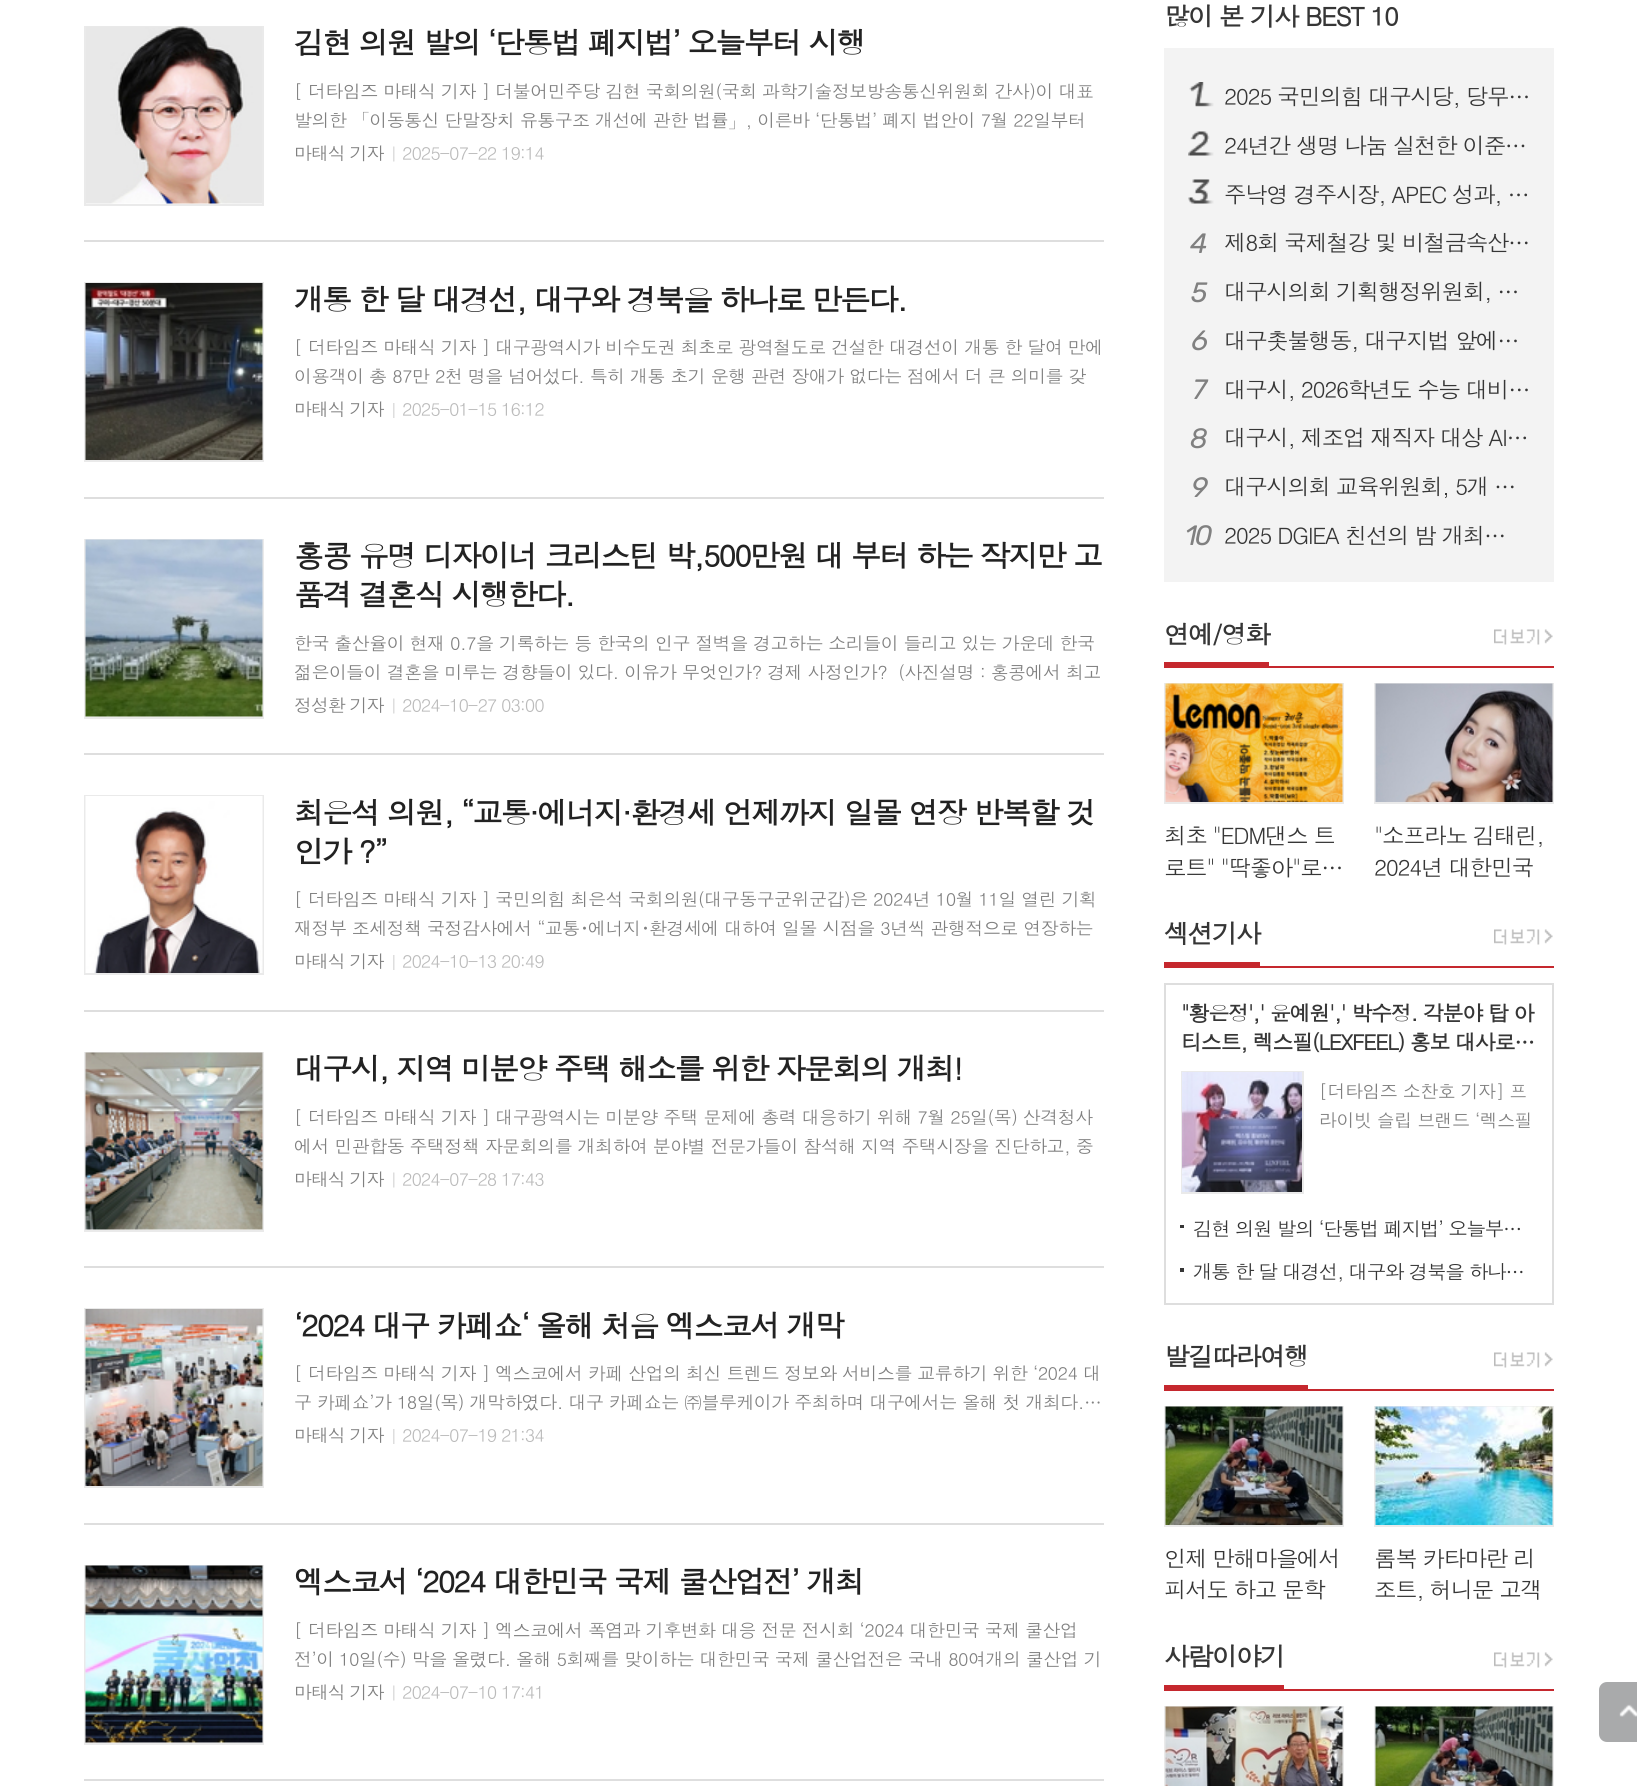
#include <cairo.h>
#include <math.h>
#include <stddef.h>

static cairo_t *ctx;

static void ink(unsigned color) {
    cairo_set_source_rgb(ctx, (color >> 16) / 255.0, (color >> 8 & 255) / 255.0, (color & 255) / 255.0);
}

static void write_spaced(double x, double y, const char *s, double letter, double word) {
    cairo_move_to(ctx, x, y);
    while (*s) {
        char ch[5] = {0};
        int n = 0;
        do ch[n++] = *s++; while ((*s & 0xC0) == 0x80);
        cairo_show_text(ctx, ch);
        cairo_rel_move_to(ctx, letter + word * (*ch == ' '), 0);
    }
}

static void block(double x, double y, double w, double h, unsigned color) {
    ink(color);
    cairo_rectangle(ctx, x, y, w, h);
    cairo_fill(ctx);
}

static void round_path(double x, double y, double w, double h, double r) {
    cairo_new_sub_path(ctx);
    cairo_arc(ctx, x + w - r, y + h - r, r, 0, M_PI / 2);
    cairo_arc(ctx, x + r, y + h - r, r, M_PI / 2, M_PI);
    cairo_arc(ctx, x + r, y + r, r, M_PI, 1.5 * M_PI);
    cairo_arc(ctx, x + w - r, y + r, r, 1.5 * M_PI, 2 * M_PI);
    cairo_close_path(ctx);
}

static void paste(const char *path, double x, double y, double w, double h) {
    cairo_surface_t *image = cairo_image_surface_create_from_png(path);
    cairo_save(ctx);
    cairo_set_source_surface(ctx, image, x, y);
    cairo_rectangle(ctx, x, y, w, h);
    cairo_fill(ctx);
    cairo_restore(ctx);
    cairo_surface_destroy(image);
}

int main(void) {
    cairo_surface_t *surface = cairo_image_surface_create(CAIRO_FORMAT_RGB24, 1637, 1786);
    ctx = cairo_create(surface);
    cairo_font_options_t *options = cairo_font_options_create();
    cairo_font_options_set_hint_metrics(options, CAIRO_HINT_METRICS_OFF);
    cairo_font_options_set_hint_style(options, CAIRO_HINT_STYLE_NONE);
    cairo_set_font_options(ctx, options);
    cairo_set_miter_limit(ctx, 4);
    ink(0xffffff);
    cairo_paint(ctx);
    block(84, 240, 1020, 2, 0xdedede);
    cairo_rectangle(ctx, 85, 27, 178, 178);
    ink(0xeaeaea);
    cairo_stroke(ctx);
    paste("pic1.png", 86, 26, 176, 178);
    cairo_select_font_face(ctx, "Dotum", CAIRO_FONT_SLANT_NORMAL, CAIRO_FONT_WEIGHT_BOLD);
    cairo_set_font_size(ctx, 30);
    ink(0x222222);
    write_spaced(294, 54, "김현 의원 발의 ‘단통법 폐지법’ 오늘부터 시행", -1.8, 0);
    cairo_select_font_face(ctx, "Dotum", CAIRO_FONT_SLANT_NORMAL, CAIRO_FONT_WEIGHT_NORMAL);
    cairo_set_font_size(ctx, 18);
    ink(0x808080);
    write_spaced(294, 98, "[ 더타임즈 마태식 기자 ] 더불어민주당 김현 국회의원(국회 과학기술정보방송통신위원회 간사)이 대표", -0.55, 0);
    write_spaced(294, 127, "발의한 「이동통신 단말장치 유통구조 개선에 관한 법률」, 이른바 ‘단통법’ 폐지 법안이 7월 22일부터", -0.55, 0);
    write_spaced(294, 160, "마태식 기자", -1.1, 0);
    paste("pic2.png", 393, 146, 2, 16);
    ink(0xbbbbbb);
    write_spaced(402, 160, "2025-07-22 19:14", -1.1, 0);
    block(84, 497, 1020, 2, 0xdedede);
    cairo_rectangle(ctx, 85, 283, 178, 178);
    ink(0xeaeaea);
    cairo_stroke(ctx);
    paste("pic3.png", 85, 283, 178, 177);
    cairo_select_font_face(ctx, "Dotum", CAIRO_FONT_SLANT_NORMAL, CAIRO_FONT_WEIGHT_BOLD);
    cairo_set_font_size(ctx, 30);
    ink(0x222222);
    write_spaced(294, 311, "개통 한 달 대경선, 대구와 경북을 하나로 만든다.", -1.8, 0);
    cairo_select_font_face(ctx, "Dotum", CAIRO_FONT_SLANT_NORMAL, CAIRO_FONT_WEIGHT_NORMAL);
    cairo_set_font_size(ctx, 18);
    ink(0x808080);
    write_spaced(294, 354, "[ 더타임즈 마태식 기자 ] 대구광역시가 비수도권 최초로 광역철도로 건설한 대경선이 개통 한 달여 만에", -0.55, 0);
    write_spaced(294, 383, "이용객이 총 87만 2천 명을 넘어섰다. 특히 개통 초기 운행 관련 장애가 없다는 점에서 더 큰 의미를 갖", -0.55, 0);
    write_spaced(294, 416, "마태식 기자", -1.1, 0);
    paste("pic4.png", 393, 403, 2, 15);
    ink(0xbbbbbb);
    write_spaced(402, 416, "2025-01-15 16:12", -1.1, 0);
    block(84, 753, 1020, 2, 0xdedede);
    cairo_rectangle(ctx, 85, 540, 178, 178);
    ink(0xeaeaea);
    cairo_stroke(ctx);
    paste("pic5.png", 85, 539, 178, 178);
    cairo_select_font_face(ctx, "Dotum", CAIRO_FONT_SLANT_NORMAL, CAIRO_FONT_WEIGHT_BOLD);
    cairo_set_font_size(ctx, 30);
    ink(0x222222);
    write_spaced(294, 567, "홍콩 유명 디자이너 크리스틴 박,500만원 대 부터 하는 작지만 고", -1.8, 0);
    write_spaced(294, 606, "품격 결혼식 시행한다.", -1.8, 0);
    cairo_select_font_face(ctx, "Dotum", CAIRO_FONT_SLANT_NORMAL, CAIRO_FONT_WEIGHT_NORMAL);
    cairo_set_font_size(ctx, 18);
    ink(0x808080);
    write_spaced(294, 650, "한국 출산율이 현재 0.7을 기록하는 등 한국의 인구 절벽을 경고하는 소리들이 들리고 있는 가운데 한국", -0.55, 0);
    write_spaced(294, 679, "젊은이들이 결혼을 미루는 경향들이 있다. 이유가 무엇인가? 경제 사정인가?  (사진설명 : 홍콩에서 최고", -0.55, 0);
    write_spaced(294, 712, "정성환 기자", -1.1, 0);
    paste("pic2.png", 393, 698, 2, 16);
    ink(0xbbbbbb);
    write_spaced(402, 712, "2024-10-27 03:00", -1.1, 0);
    block(84, 1010, 1020, 2, 0xdedede);
    cairo_rectangle(ctx, 85, 796, 178, 178);
    ink(0xeaeaea);
    cairo_stroke(ctx);
    paste("pic6.png", 85, 796, 178, 177);
    cairo_select_font_face(ctx, "Dotum", CAIRO_FONT_SLANT_NORMAL, CAIRO_FONT_WEIGHT_BOLD);
    cairo_set_font_size(ctx, 30);
    ink(0x222222);
    write_spaced(294, 824, "최은석 의원, “교통·에너지·환경세 언제까지 일몰 연장 반복할 것", -1.8, 0);
    write_spaced(294, 863, "인가 ?”", -1.8, 0);
    cairo_select_font_face(ctx, "Dotum", CAIRO_FONT_SLANT_NORMAL, CAIRO_FONT_WEIGHT_NORMAL);
    cairo_set_font_size(ctx, 18);
    ink(0x808080);
    write_spaced(294, 906, "[ 더타임즈 마태식 기자 ] 국민의힘 최은석 국회의원(대구동구군위군갑)은 2024년 10월 11일 열린 기획", -0.55, 0);
    write_spaced(294, 935, "재정부 조세정책 국정감사에서 “교통", -0.55, 0);
    cairo_select_font_face(ctx, "Noto Sans CJK KR", CAIRO_FONT_SLANT_NORMAL, CAIRO_FONT_WEIGHT_NORMAL);
    write_spaced(580, 935, "･", -0.55, 0);
    cairo_select_font_face(ctx, "Dotum", CAIRO_FONT_SLANT_NORMAL, CAIRO_FONT_WEIGHT_NORMAL);
    write_spaced(588, 935, "에너지", -0.55, 0);
    cairo_select_font_face(ctx, "Noto Sans CJK KR", CAIRO_FONT_SLANT_NORMAL, CAIRO_FONT_WEIGHT_NORMAL);
    write_spaced(641, 935, "･", -0.55, 0);
    cairo_select_font_face(ctx, "Dotum", CAIRO_FONT_SLANT_NORMAL, CAIRO_FONT_WEIGHT_NORMAL);
    write_spaced(649, 935, "환경세에 대하여 일몰 시점을 3년씩 관행적으로 연장하는", -0.55, 0);
    write_spaced(294, 968, "마태식 기자", -1.1, 0);
    paste("pic4.png", 393, 955, 2, 15);
    ink(0xbbbbbb);
    write_spaced(402, 968, "2024-10-13 20:49", -1.1, 0);
    block(84, 1266, 1020, 2, 0xdedede);
    cairo_rectangle(ctx, 85, 1053, 178, 178);
    ink(0xeaeaea);
    cairo_stroke(ctx);
    paste("pic7.png", 85, 1052, 178, 178);
    cairo_select_font_face(ctx, "Dotum", CAIRO_FONT_SLANT_NORMAL, CAIRO_FONT_WEIGHT_BOLD);
    cairo_set_font_size(ctx, 30);
    ink(0x222222);
    write_spaced(294, 1080, "대구시, 지역 미분양 주택 해소를 위한 자문회의 개최!", -1.8, 0);
    cairo_select_font_face(ctx, "Dotum", CAIRO_FONT_SLANT_NORMAL, CAIRO_FONT_WEIGHT_NORMAL);
    cairo_set_font_size(ctx, 18);
    ink(0x808080);
    write_spaced(294, 1124, "[ 더타임즈 마태식 기자 ] 대구광역시는 미분양 주택 문제에 총력 대응하기 위해 7월 25일(목) 산격청사", -0.55, 0);
    write_spaced(294, 1153, "에서 민관합동 주택정책 자문회의를 개최하여 분야별 전문가들이 참석해 지역 주택시장을 진단하고, 중", -0.55, 0);
    write_spaced(294, 1186, "마태식 기자", -1.1, 0);
    paste("pic2.png", 393, 1172, 2, 16);
    ink(0xbbbbbb);
    write_spaced(402, 1186, "2024-07-28 17:43", -1.1, 0);
    block(84, 1523, 1020, 2, 0xdedede);
    cairo_rectangle(ctx, 85, 1309, 178, 178);
    ink(0xeaeaea);
    cairo_stroke(ctx);
    paste("pic8.png", 85, 1309, 178, 177);
    cairo_select_font_face(ctx, "Dotum", CAIRO_FONT_SLANT_NORMAL, CAIRO_FONT_WEIGHT_BOLD);
    cairo_set_font_size(ctx, 30);
    ink(0x222222);
    write_spaced(294, 1337, "‘2024 대구 카페쇼‘ 올해 처음 엑스코서 개막", -1.8, 0);
    cairo_select_font_face(ctx, "Dotum", CAIRO_FONT_SLANT_NORMAL, CAIRO_FONT_WEIGHT_NORMAL);
    cairo_set_font_size(ctx, 18);
    ink(0x808080);
    write_spaced(294, 1380, "[ 더타임즈 마태식 기자 ] 엑스코에서 카페 산업의 최신 트렌드 정보와 서비스를 교류하기 위한 ‘2024 대", -0.55, 0);
    write_spaced(294, 1409, "구 카페쇼’가 18일(목) 개막하였다. 대구 카페쇼는 ㈜블루케이가 주최하며 대구에서는 올해 첫 개최다.…", -0.55, 0);
    write_spaced(294, 1442, "마태식 기자", -1.1, 0);
    paste("pic4.png", 393, 1429, 2, 15);
    ink(0xbbbbbb);
    write_spaced(402, 1442, "2024-07-19 21:34", -1.1, 0);
    block(84, 1779, 1020, 2, 0xdedede);
    cairo_rectangle(ctx, 85, 1566, 178, 178);
    ink(0xeaeaea);
    cairo_stroke(ctx);
    paste("pic9.png", 85, 1565, 178, 178);
    cairo_select_font_face(ctx, "Dotum", CAIRO_FONT_SLANT_NORMAL, CAIRO_FONT_WEIGHT_BOLD);
    cairo_set_font_size(ctx, 30);
    ink(0x222222);
    write_spaced(294, 1593, "엑스코서 ‘2024 대한민국 국제 쿨산업전’ 개최", -1.8, 0);
    cairo_select_font_face(ctx, "Dotum", CAIRO_FONT_SLANT_NORMAL, CAIRO_FONT_WEIGHT_NORMAL);
    cairo_set_font_size(ctx, 18);
    ink(0x808080);
    write_spaced(294, 1637, "[ 더타임즈 마태식 기자 ] 엑스코에서 폭염과 기후변화 대응 전문 전시회 ‘2024 대한민국 국제 쿨산업", -0.55, 0);
    write_spaced(294, 1666, "전’이 10일(수) 막을 올렸다. 올해 5회째를 맞이하는 대한민국 국제 쿨산업전은 국내 80여개의 쿨산업 기", -0.55, 0);
    write_spaced(294, 1699, "마태식 기자", -1.1, 0);
    paste("pic2.png", 393, 1685, 2, 16);
    ink(0xbbbbbb);
    write_spaced(402, 1699, "2024-07-10 17:41", -1.1, 0);
    cairo_select_font_face(ctx, "Dotum", CAIRO_FONT_SLANT_NORMAL, CAIRO_FONT_WEIGHT_BOLD);
    cairo_set_font_size(ctx, 25.5);
    ink(0x363636);
    write_spaced(1164, 26, "많이 본 기사 BEST 10", -1.5, 0);
    block(1164, 48, 390, 534, 0xf3f3f3);
    paste("pic10.png", 1189, 82, 25, 25);
    cairo_select_font_face(ctx, "Dotum", CAIRO_FONT_SLANT_NORMAL, CAIRO_FONT_WEIGHT_NORMAL);
    cairo_set_font_size(ctx, 22.5);
    ink(0x363636);
    write_spaced(1224, 105, "2025 국민의힘 대구시당, 당무…", -1.35, 0);
    paste("pic11.png", 1188, 131, 26, 25);
    write_spaced(1224, 154, "24년간 생명 나눔 실천한 이준…", -1.35, 0);
    paste("pic12.png", 1188, 179, 26, 25);
    write_spaced(1224, 203, "주낙영 경주시장, APEC 성과, …", -1.35, 0);
    cairo_select_font_face(ctx, "Rubik Light", CAIRO_FONT_SLANT_ITALIC, CAIRO_FONT_WEIGHT_NORMAL);
    cairo_set_font_size(ctx, 28);
    ink(0x808080);
    write_spaced(1190, 253, "4", -2, 0);
    cairo_select_font_face(ctx, "Dotum", CAIRO_FONT_SLANT_NORMAL, CAIRO_FONT_WEIGHT_NORMAL);
    cairo_set_font_size(ctx, 22.5);
    ink(0x363636);
    write_spaced(1224, 251, "제8회 국제철강 및 비철금속산…", -1.35, 0);
    cairo_select_font_face(ctx, "Rubik Light", CAIRO_FONT_SLANT_ITALIC, CAIRO_FONT_WEIGHT_NORMAL);
    cairo_set_font_size(ctx, 28);
    ink(0x808080);
    write_spaced(1191, 302, "5", -2, 0);
    cairo_select_font_face(ctx, "Dotum", CAIRO_FONT_SLANT_NORMAL, CAIRO_FONT_WEIGHT_NORMAL);
    cairo_set_font_size(ctx, 22.5);
    ink(0x363636);
    write_spaced(1224, 300, "대구시의회 기획행정위원회, …", -1.35, 0);
    cairo_select_font_face(ctx, "Rubik Light", CAIRO_FONT_SLANT_ITALIC, CAIRO_FONT_WEIGHT_NORMAL);
    cairo_set_font_size(ctx, 28);
    ink(0x808080);
    write_spaced(1191, 350, "6", -2, 0);
    cairo_select_font_face(ctx, "Dotum", CAIRO_FONT_SLANT_NORMAL, CAIRO_FONT_WEIGHT_NORMAL);
    cairo_set_font_size(ctx, 22.5);
    ink(0x363636);
    write_spaced(1224, 349, "대구촛불행동, 대구지법 앞에…", -1.35, 0);
    cairo_select_font_face(ctx, "Rubik Light", CAIRO_FONT_SLANT_ITALIC, CAIRO_FONT_WEIGHT_NORMAL);
    cairo_set_font_size(ctx, 28);
    ink(0x808080);
    write_spaced(1192, 399, "7", -2, 0);
    cairo_select_font_face(ctx, "Dotum", CAIRO_FONT_SLANT_NORMAL, CAIRO_FONT_WEIGHT_NORMAL);
    cairo_set_font_size(ctx, 22.5);
    ink(0x363636);
    write_spaced(1224, 398, "대구시, 2026학년도 수능 대비…", -1.35, 0);
    cairo_select_font_face(ctx, "Rubik Light", CAIRO_FONT_SLANT_ITALIC, CAIRO_FONT_WEIGHT_NORMAL);
    cairo_set_font_size(ctx, 28);
    ink(0x808080);
    write_spaced(1190, 448, "8", -2, 0);
    cairo_select_font_face(ctx, "Dotum", CAIRO_FONT_SLANT_NORMAL, CAIRO_FONT_WEIGHT_NORMAL);
    cairo_set_font_size(ctx, 22.5);
    ink(0x363636);
    write_spaced(1224, 446, "대구시, 제조업 재직자 대상 AI…", -1.35, 0);
    cairo_select_font_face(ctx, "Rubik Light", CAIRO_FONT_SLANT_ITALIC, CAIRO_FONT_WEIGHT_NORMAL);
    cairo_set_font_size(ctx, 28);
    ink(0x808080);
    write_spaced(1191, 497, "9", -2, 0);
    cairo_select_font_face(ctx, "Dotum", CAIRO_FONT_SLANT_NORMAL, CAIRO_FONT_WEIGHT_NORMAL);
    cairo_set_font_size(ctx, 22.5);
    ink(0x363636);
    write_spaced(1224, 495, "대구시의회 교육위원회, 5개 …", -1.35, 0);
    cairo_select_font_face(ctx, "Rubik Light", CAIRO_FONT_SLANT_ITALIC, CAIRO_FONT_WEIGHT_NORMAL);
    cairo_set_font_size(ctx, 28);
    ink(0x808080);
    write_spaced(1185, 545, "10", -2, 0);
    cairo_select_font_face(ctx, "Dotum", CAIRO_FONT_SLANT_NORMAL, CAIRO_FONT_WEIGHT_NORMAL);
    cairo_set_font_size(ctx, 22.5);
    ink(0x363636);
    write_spaced(1224, 544, "2025 DGIEA 친선의 밤 개최…", -1.35, 0);
    block(1269, 666, 285, 2, 0xc5282e);
    block(1164, 662, 105, 6, 0xc5282e);
    cairo_select_font_face(ctx, "Dotum", CAIRO_FONT_SLANT_NORMAL, CAIRO_FONT_WEIGHT_BOLD);
    cairo_set_font_size(ctx, 25.5);
    ink(0x363636);
    write_spaced(1164, 644, "연예/영화", -1.5, 0);
    paste("pic13.png", 1494, 629, 59, 16);
    cairo_rectangle(ctx, 1165, 684, 178, 119);
    ink(0xeaeaea);
    cairo_stroke(ctx);
    paste("pic14.png", 1165, 683, 178, 119);
    cairo_select_font_face(ctx, "Dotum", CAIRO_FONT_SLANT_NORMAL, CAIRO_FONT_WEIGHT_NORMAL);
    cairo_set_font_size(ctx, 22.5);
    ink(0x363636);
    write_spaced(1164, 844, "최초 \"EDM댄스 트", -1.35, 0);
    write_spaced(1164, 876, "로트\" \"딱좋아\"로…", -1.35, 0);
    cairo_rectangle(ctx, 1375, 684, 178, 119);
    ink(0xeaeaea);
    cairo_stroke(ctx);
    paste("pic15.png", 1375, 683, 178, 119);
    ink(0x363636);
    write_spaced(1374, 844, "\"소프라노 김태린,", -1.35, 0);
    write_spaced(1374, 876, "2024년 대한민국", -1.35, 0);
    block(1260, 966, 294, 2, 0xc5282e);
    block(1164, 962, 96, 6, 0xc5282e);
    cairo_select_font_face(ctx, "Dotum", CAIRO_FONT_SLANT_NORMAL, CAIRO_FONT_WEIGHT_BOLD);
    cairo_set_font_size(ctx, 25.5);
    ink(0x363636);
    write_spaced(1164, 943, "섹션기사", -1.5, 0);
    paste("pic13.png", 1494, 929, 59, 16);
    cairo_rectangle(ctx, 1165, 984, 388, 320);
    ink(0xdedede);
    cairo_stroke(ctx);
    cairo_set_font_size(ctx, 21);
    ink(0x363636);
    write_spaced(1181, 1021, "\"황은정',' 윤예원',' 박수정. 각분야 탑 아", -1.25, 0);
    write_spaced(1181, 1050, "티스트, 렉스필(LEXFEEL) 홍보 대사로…", -1.25, 0);
    cairo_rectangle(ctx, 1182, 1072, 121, 121);
    ink(0xeaeaea);
    cairo_stroke(ctx);
    paste("pic16.png", 1182, 1072, 120, 120);
    cairo_select_font_face(ctx, "Dotum", CAIRO_FONT_SLANT_NORMAL, CAIRO_FONT_WEIGHT_NORMAL);
    cairo_set_font_size(ctx, 18);
    ink(0x808080);
    write_spaced(1319, 1098, "[더타임즈 소찬호 기자] 프", -0.55, 0);
    write_spaced(1319, 1127, "라이빗 슬립 브랜드 ‘렉스필", -0.55, 0);
    block(1180, 1225, 4, 3, 0x363636);
    cairo_set_font_size(ctx, 19.5);
    write_spaced(1193, 1236, "김현 의원 발의 ‘단통법 폐지법’ 오늘부…", -1.2, 0);
    block(1180, 1268, 4, 4, 0x363636);
    write_spaced(1193, 1279, "개통 한 달 대경선, 대구와 경북을 하나…", -1.2, 0);
    block(1308, 1389, 246, 2, 0xc5282e);
    block(1164, 1385, 144, 6, 0xc5282e);
    cairo_select_font_face(ctx, "Dotum", CAIRO_FONT_SLANT_NORMAL, CAIRO_FONT_WEIGHT_BOLD);
    cairo_set_font_size(ctx, 25.5);
    ink(0x363636);
    write_spaced(1164, 1366, "발길따라여행", -1.5, 0);
    paste("pic13.png", 1494, 1352, 59, 16);
    cairo_rectangle(ctx, 1165, 1407, 178, 119);
    ink(0xeaeaea);
    cairo_stroke(ctx);
    paste("pic17.png", 1165, 1406, 178, 119);
    cairo_select_font_face(ctx, "Dotum", CAIRO_FONT_SLANT_NORMAL, CAIRO_FONT_WEIGHT_NORMAL);
    cairo_set_font_size(ctx, 22.5);
    ink(0x363636);
    write_spaced(1164, 1567, "인제 만해마을에서", -1.35, 0);
    write_spaced(1164, 1598, "피서도 하고 문학", -1.35, 0);
    cairo_rectangle(ctx, 1375, 1407, 178, 119);
    ink(0xeaeaea);
    cairo_stroke(ctx);
    paste("pic18.png", 1375, 1406, 178, 119);
    ink(0x363636);
    write_spaced(1374, 1567, "롬복 카타마란 리", -1.35, 0);
    write_spaced(1374, 1598, "조트, 허니문 고객", -1.35, 0);
    block(1284, 1689, 270, 2, 0xc5282e);
    block(1164, 1685, 120, 6, 0xc5282e);
    cairo_select_font_face(ctx, "Dotum", CAIRO_FONT_SLANT_NORMAL, CAIRO_FONT_WEIGHT_BOLD);
    cairo_set_font_size(ctx, 25.5);
    ink(0x363636);
    write_spaced(1164, 1666, "사람이야기", -1.5, 0);
    paste("pic13.png", 1494, 1652, 59, 16);
    cairo_rectangle(ctx, 1165, 1707, 178, 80);
    ink(0xeaeaea);
    cairo_stroke(ctx);
    paste("pic19.png", 1165, 1706, 178, 80);
    cairo_rectangle(ctx, 1375, 1707, 178, 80);
    cairo_stroke(ctx);
    paste("pic20.png", 1375, 1706, 178, 80);
    ink(0xa9aaab);
    round_path(1599, 1682, 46, 60, 8);
    cairo_fill(ctx);
    paste("pic21.png", 1619, 1704, 18, 13);
    cairo_surface_write_to_png(surface, "screenshot.png");
    cairo_font_options_destroy(options);
    cairo_destroy(ctx);
    cairo_surface_destroy(surface);
    return 0;
}
